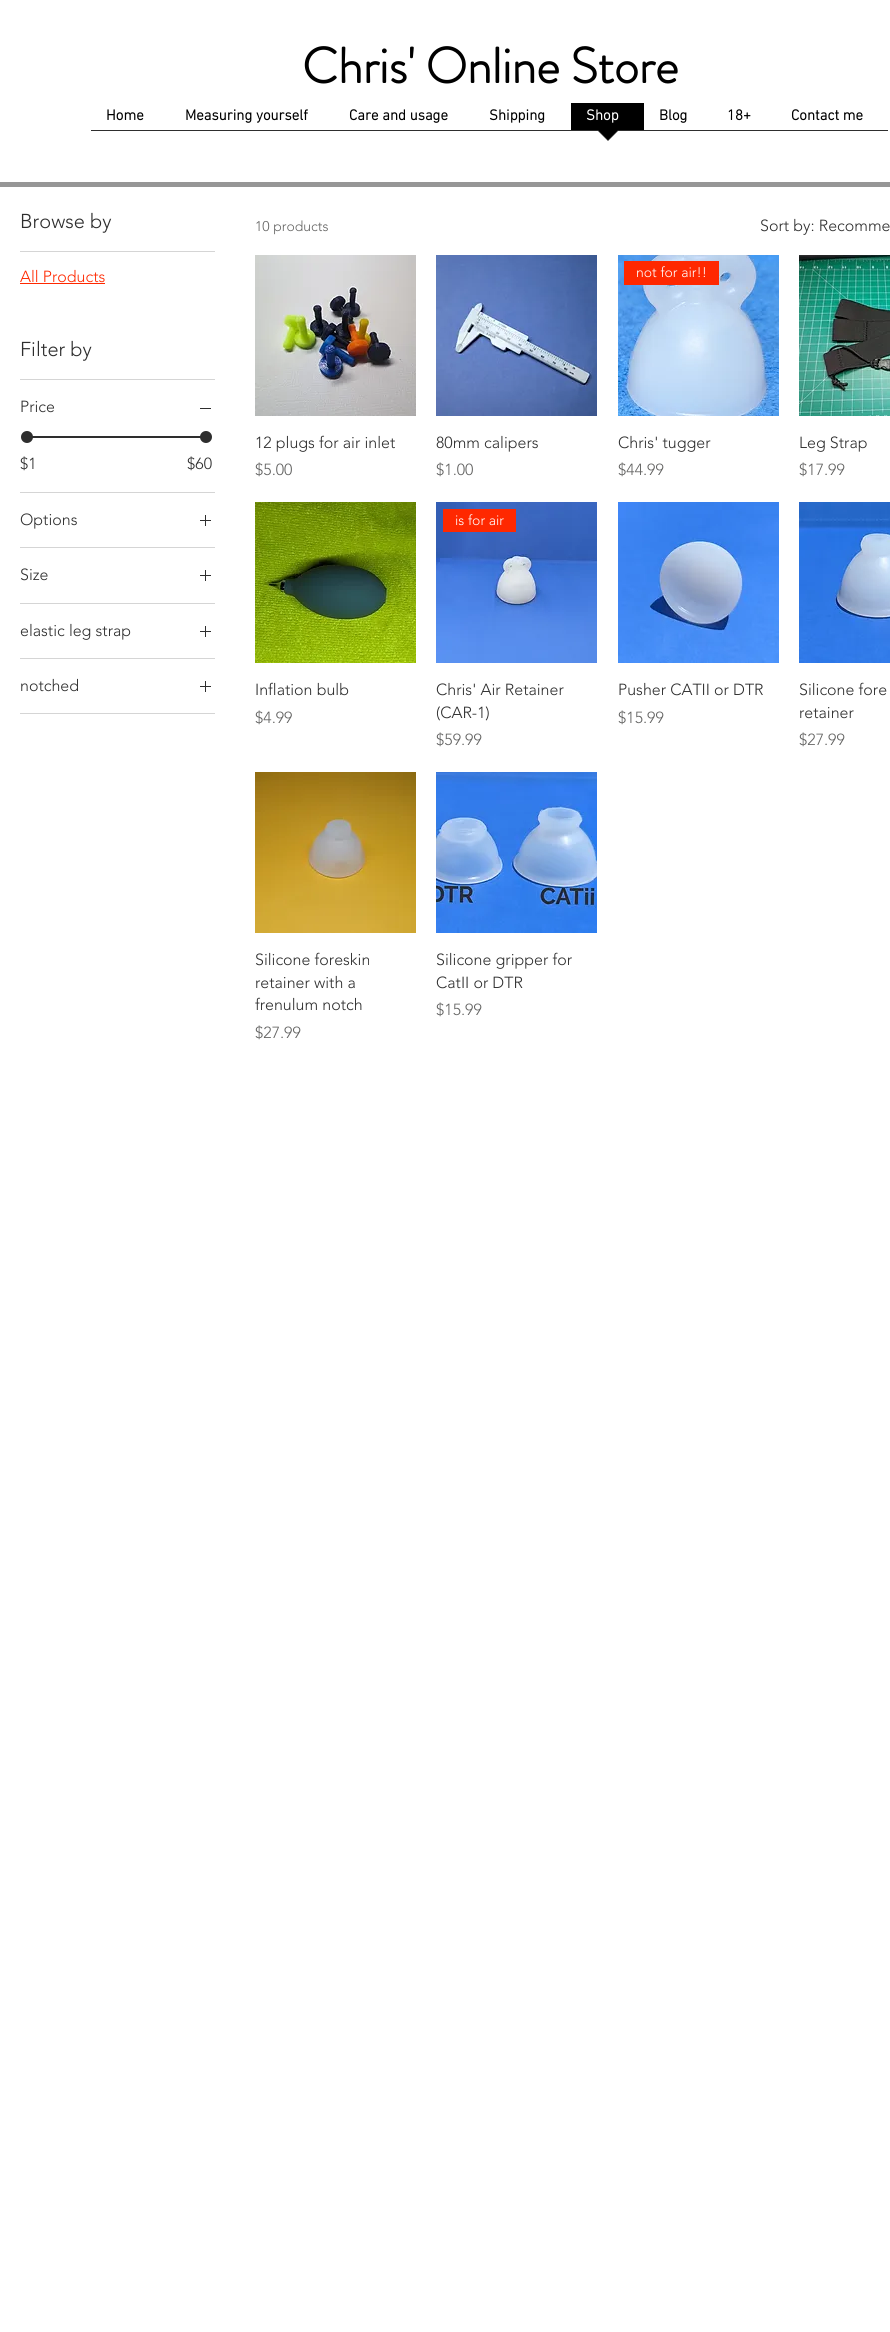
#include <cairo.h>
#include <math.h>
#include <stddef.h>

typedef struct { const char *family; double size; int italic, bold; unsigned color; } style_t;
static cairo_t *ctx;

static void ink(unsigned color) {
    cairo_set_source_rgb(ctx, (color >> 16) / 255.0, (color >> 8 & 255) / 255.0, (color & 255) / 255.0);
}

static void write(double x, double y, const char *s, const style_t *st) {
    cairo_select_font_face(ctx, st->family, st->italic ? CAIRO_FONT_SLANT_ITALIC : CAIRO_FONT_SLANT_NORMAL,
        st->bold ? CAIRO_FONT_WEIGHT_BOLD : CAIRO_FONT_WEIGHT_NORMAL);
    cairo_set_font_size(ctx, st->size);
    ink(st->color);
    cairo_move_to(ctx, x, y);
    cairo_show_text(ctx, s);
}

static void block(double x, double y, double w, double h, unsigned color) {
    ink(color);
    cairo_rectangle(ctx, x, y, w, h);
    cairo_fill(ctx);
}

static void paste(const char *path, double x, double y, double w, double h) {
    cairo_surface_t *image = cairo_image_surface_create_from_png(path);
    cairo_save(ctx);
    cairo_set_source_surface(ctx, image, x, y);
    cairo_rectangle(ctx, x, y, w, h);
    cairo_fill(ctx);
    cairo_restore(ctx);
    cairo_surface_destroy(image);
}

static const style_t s1 = {"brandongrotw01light", 50, 0, 1, 0x000000};
static const style_t s2 = {"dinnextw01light", 15, 0, 1, 0x000000};
static const style_t s3 = {"dinnextw01light", 15, 0, 1, 0xffffff};
static const style_t s4 = {"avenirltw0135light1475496 Light", 20, 0, 0, 0x2e2e2e};
static const style_t s5 = {"avenirltw0135light1475496 Light", 16, 0, 0, 0xff2800};
static const style_t s6 = {"avenirltw0135light1475496 Light", 16, 0, 0, 0x2e2e2e};
static const style_t s7 = {"avenirltw0135light1475496 Light", 14, 0, 0, 0x636362};
static const style_t s8 = {"avenirltw0135light1475496 Light", 16, 0, 0, 0x636362};
static const style_t s9 = {"avenirltw0135light1475496 Light", 14, 0, 0, 0xffffff};

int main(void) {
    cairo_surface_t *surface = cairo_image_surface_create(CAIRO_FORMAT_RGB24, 890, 2332);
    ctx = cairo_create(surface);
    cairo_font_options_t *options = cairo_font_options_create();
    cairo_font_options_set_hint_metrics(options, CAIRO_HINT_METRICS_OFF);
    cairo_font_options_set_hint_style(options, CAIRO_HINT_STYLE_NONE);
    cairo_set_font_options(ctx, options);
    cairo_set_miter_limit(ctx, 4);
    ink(0xffffff);
    cairo_paint(ctx);
    write(302, 83, "Chris' Online Store", &s1);
    write(106, 120, "Home", &s2);
    write(185, 120, "Measuring yourself", &s2);
    write(349, 120, "Care and usage", &s2);
    write(489, 120, "Shipping", &s2);
    block(571, 103, 73, 27, 0x000000);
    write(586, 120, "Shop", &s3);
    block(91, 130, 797, 1, 0x2e2e2e);
    cairo_new_path(ctx);
    cairo_move_to(ctx, 597, 130);
    cairo_line_to(ctx, 619, 130);
    cairo_line_to(ctx, 608, 141);
    cairo_close_path(ctx);
    cairo_fill(ctx);
    ink(0x000000);
    cairo_new_path(ctx);
    cairo_move_to(ctx, 598, 130);
    cairo_line_to(ctx, 618, 130);
    cairo_line_to(ctx, 608, 140);
    cairo_close_path(ctx);
    cairo_fill(ctx);
    write(659, 120, "Blog", &s2);
    write(727, 120, "18+", &s2);
    write(791, 120, "Contact me", &s2);
    block(0, 182, 890, 5, 0x969696);
    block(20, 251, 195, 1, 0xd5d5d5);
    write(20, 228, "Browse by", &s4);
    write(20, 282, "All Products", &s5);
    block(20, 283, 85, 1, 0xff2800);
    block(20, 379, 195, 1, 0xd5d5d5);
    write(20, 356, "Filter by", &s4);
    block(20, 492, 195, 1, 0xd5d5d5);
    write(20, 412, "Price", &s6);
    block(200, 408, 11, 1, 0x2e2e2e);
    block(26, 436, 179, 2, 0x2e2e2e);
    cairo_new_path(ctx);
    cairo_arc(ctx, 27, 437, 6, 0, 2 * M_PI);
    cairo_fill(ctx);
    cairo_arc(ctx, 206, 437, 6, 0, 2 * M_PI);
    cairo_fill(ctx);
    write(20, 469, "$1", &s6);
    write(187, 469, "$60", &s6);
    block(20, 547, 195, 1, 0xd5d5d5);
    write(20, 525, "Options", &s6);
    paste("pic1.png", 200, 515, 11, 11);
    block(20, 603, 195, 1, 0xd5d5d5);
    write(20, 580, "Size", &s6);
    paste("pic1.png", 200, 570, 11, 11);
    block(20, 658, 195, 1, 0xd5d5d5);
    write(20, 636, "elastic leg strap", &s6);
    paste("pic1.png", 200, 626, 11, 11);
    block(20, 713, 195, 1, 0xd5d5d5);
    write(20, 691, "notched", &s6);
    paste("pic1.png", 200, 681, 11, 11);
    write(255, 231, "10 products", &s7);
    write(760, 231, "Sort by: Recomme", &s6);
    paste("pic2.png", 255, 255, 161, 161);
    write(255, 448, "12 plugs for air inlet", &s6);
    write(255, 475, "$5.00", &s8);
    paste("pic3.png", 436, 255, 161, 161);
    write(436, 448, "80mm calipers", &s6);
    write(436, 475, "$1.00", &s8);
    paste("pic4.png", 618, 255, 161, 161);
    block(624, 261, 95, 24, 0xff2800);
    write(636, 277, "not for air!!", &s9);
    write(618, 448, "Chris' tugger", &s6);
    write(618, 475, "$44.99", &s8);
    paste("pic5.png", 799, 255, 91, 161);
    write(799, 448, "Leg Strap", &s6);
    write(799, 475, "$17.99", &s8);
    paste("pic6.png", 255, 502, 161, 161);
    write(255, 695, "Inflation bulb", &s6);
    write(255, 723, "$4.99", &s8);
    paste("pic7.png", 436, 502, 161, 161);
    block(443, 509, 73, 23, 0xff2800);
    write(455, 525, "is for air", &s9);
    write(436, 695, "Chris' Air Retainer", &s6);
    write(436, 718, "(CAR-1)", &s6);
    write(436, 745, "$59.99", &s8);
    paste("pic8.png", 618, 502, 161, 161);
    write(618, 695, "Pusher CATII or DTR", &s6);
    write(618, 723, "$15.99", &s8);
    paste("pic9.png", 799, 502, 91, 161);
    write(799, 695, "Silicone fore", &s6);
    write(799, 718, "retainer", &s6);
    write(799, 745, "$27.99", &s8);
    paste("pic10.png", 255, 772, 161, 161);
    write(255, 965, "Silicone foreskin", &s6);
    write(255, 988, "retainer with a", &s6);
    write(255, 1010, "frenulum notch", &s6);
    write(255, 1038, "$27.99", &s8);
    paste("pic11.png", 436, 772, 161, 161);
    write(436, 965, "Silicone gripper for", &s6);
    write(436, 988, "CatII or DTR", &s6);
    write(436, 1015, "$15.99", &s8);
    cairo_surface_write_to_png(surface, "screenshot.png");
    cairo_font_options_destroy(options);
    cairo_destroy(ctx);
    cairo_surface_destroy(surface);
    return 0;
}
